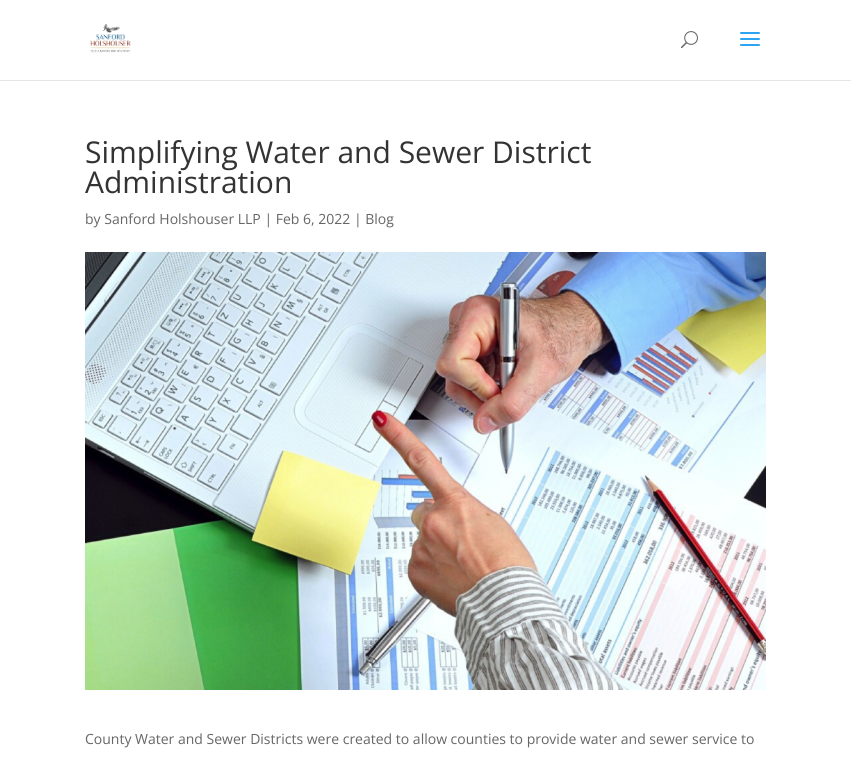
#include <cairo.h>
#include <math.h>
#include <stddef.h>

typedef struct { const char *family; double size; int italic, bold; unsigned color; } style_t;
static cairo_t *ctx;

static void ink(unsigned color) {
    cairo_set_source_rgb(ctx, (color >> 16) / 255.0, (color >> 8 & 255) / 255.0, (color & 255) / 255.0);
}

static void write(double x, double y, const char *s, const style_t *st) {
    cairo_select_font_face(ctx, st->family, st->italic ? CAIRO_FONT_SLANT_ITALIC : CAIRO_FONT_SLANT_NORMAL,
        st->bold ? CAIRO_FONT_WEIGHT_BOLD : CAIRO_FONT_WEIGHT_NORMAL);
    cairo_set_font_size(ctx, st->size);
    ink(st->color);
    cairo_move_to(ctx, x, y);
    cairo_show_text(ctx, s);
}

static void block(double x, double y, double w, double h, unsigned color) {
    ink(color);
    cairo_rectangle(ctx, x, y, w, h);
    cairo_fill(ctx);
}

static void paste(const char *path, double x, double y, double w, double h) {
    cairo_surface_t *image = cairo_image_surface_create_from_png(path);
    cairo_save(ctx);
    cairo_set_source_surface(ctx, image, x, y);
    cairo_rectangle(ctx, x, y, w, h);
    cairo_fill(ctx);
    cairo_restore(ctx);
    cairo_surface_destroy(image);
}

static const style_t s1 = {"Open Sans", 30, 0, 0, 0x333333};
static const style_t s2 = {"Open Sans", 14, 0, 0, 0x666666};

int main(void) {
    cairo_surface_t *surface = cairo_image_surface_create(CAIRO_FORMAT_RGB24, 851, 762);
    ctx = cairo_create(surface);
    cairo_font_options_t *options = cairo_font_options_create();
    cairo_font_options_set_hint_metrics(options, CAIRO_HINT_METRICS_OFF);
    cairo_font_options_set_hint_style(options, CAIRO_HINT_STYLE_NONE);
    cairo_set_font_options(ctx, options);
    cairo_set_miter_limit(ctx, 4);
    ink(0xffffff);
    cairo_paint(ctx);
    block(0, 80, 851, 1, 0xe6e6e6);
    paste("pic1.png", 90, 23, 41, 30);
    paste("pic2.png", 681, 31, 17, 18);
    paste("pic3.png", 740, 32, 20, 14);
    write(85, 163, "Simplifying Water and Sewer District", &s1);
    write(85, 193, "Administration", &s1);
    write(85, 224, "by Sanford Holshouser LLP | Feb 6, 2022 | Blog", &s2);
    paste("pic4.png", 85, 252, 681, 438);
    write(85, 744, "County Water and Sewer Districts were created to allow counties to provide water and sewer service to", &s2);
    cairo_surface_write_to_png(surface, "screenshot.png");
    cairo_font_options_destroy(options);
    cairo_destroy(ctx);
    cairo_surface_destroy(surface);
    return 0;
}
